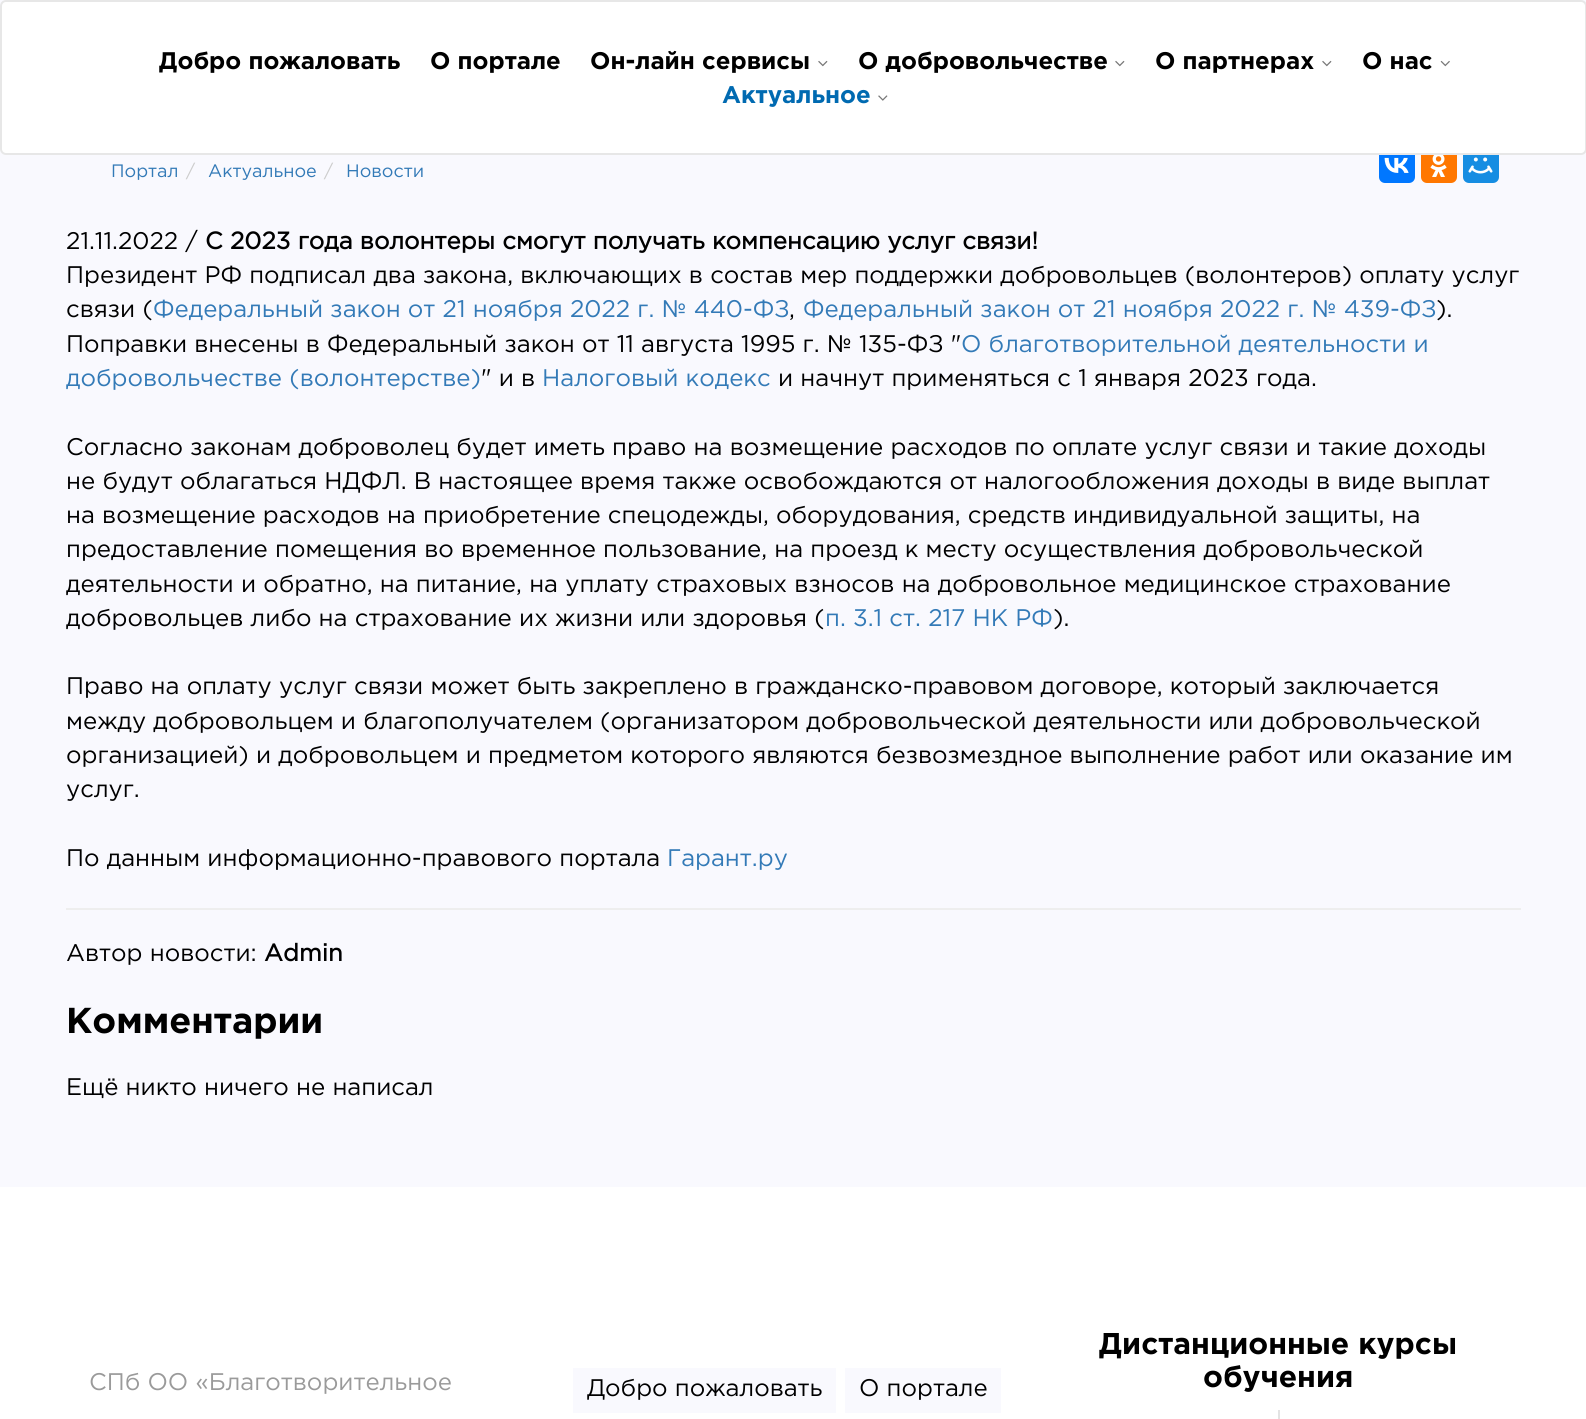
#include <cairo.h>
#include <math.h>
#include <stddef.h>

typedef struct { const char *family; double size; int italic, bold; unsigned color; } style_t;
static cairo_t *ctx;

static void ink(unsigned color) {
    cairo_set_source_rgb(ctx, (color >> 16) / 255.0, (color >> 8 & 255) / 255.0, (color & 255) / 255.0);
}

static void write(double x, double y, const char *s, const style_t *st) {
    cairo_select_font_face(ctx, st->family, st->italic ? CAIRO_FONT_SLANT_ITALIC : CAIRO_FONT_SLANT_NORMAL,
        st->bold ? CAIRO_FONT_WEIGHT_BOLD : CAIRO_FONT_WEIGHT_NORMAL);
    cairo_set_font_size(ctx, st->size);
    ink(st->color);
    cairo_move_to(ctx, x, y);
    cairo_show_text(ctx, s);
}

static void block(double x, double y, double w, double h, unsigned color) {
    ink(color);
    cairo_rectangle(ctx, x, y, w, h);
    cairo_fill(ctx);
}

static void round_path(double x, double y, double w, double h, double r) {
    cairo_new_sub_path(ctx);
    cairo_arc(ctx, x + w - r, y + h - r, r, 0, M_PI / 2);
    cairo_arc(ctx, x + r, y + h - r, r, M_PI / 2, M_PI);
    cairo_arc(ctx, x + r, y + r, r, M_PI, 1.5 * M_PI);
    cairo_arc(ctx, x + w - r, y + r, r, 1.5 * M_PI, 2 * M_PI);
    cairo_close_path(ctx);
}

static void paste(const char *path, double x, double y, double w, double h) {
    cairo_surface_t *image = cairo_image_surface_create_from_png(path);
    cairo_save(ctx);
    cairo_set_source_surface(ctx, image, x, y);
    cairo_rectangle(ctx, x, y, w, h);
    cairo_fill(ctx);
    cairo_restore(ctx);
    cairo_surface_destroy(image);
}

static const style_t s1 = {"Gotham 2", 24, 0, 1, 0x000000};
static const style_t s2 = {"Gotham 2", 24, 0, 1, 0x006ab1};
static const style_t s3 = {"Gotham", 18, 0, 0, 0x337ab7};
static const style_t s4 = {"Gotham", 18, 0, 0, 0xcccccc};
static const style_t s5 = {"Gotham", 24, 0, 0, 0x000000};
static const style_t s6 = {"Gotham", 24, 0, 1, 0x000000};
static const style_t s7 = {"Gotham", 24, 0, 0, 0x337ab7};
static const style_t s8 = {"Gotham 2", 36, 0, 1, 0x000000};
static const style_t s9 = {"Gotham", 24, 0, 0, 0x9a9a9a};
static const style_t s10 = {"Gotham 2", 30, 0, 1, 0x000000};

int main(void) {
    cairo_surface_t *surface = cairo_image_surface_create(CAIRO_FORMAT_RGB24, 1586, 1419);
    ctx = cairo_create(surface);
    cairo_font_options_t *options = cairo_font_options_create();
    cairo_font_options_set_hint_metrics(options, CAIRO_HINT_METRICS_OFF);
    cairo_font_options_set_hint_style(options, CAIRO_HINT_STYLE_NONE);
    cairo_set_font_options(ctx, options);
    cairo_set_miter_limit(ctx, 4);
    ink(0xf9f9fe);
    cairo_paint(ctx);
    ink(0x0077ff);
    round_path(1379, 147, 36, 36, 6);
    cairo_fill(ctx);
    ink(0xff7700);
    round_path(1421, 147, 36, 36, 6);
    cairo_fill(ctx);
    ink(0x168de2);
    round_path(1463, 147, 36, 36, 6);
    cairo_fill(ctx);
    ink(0xffffff);
    round_path(1, 1, 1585, 153, 5);
    cairo_fill_preserve(ctx);
    ink(0xe7e7e7);
    cairo_stroke(ctx);
    write(159, 69, "Добро пожаловать", &s1);
    write(430, 69, "О портале", &s1);
    write(590, 69, "Он-лайн сервисы", &s1);
    paste("pic1.png", 818, 60, 10, 7);
    write(858, 69, "О добровольчестве", &s1);
    paste("pic1.png", 1115, 60, 10, 7);
    write(1155, 69, "О партнерах", &s1);
    paste("pic1.png", 1322, 60, 10, 7);
    write(1362, 69, "О нас", &s1);
    paste("pic2.png", 1440, 60, 10, 7);
    write(722, 103, "Актуальное", &s2);
    paste("pic3.png", 878, 95, 10, 6);
    write(111, 177, "Портал", &s3);
    write(186, 177, "/", &s4);
    write(208, 177, "Актуальное", &s3);
    write(324, 177, "/", &s4);
    write(346, 177, "Новости", &s3);
    paste("pic4.png", 1384, 157, 25, 16);
    paste("pic5.png", 1430, 155, 17, 22);
    paste("pic6.png", 1468, 157, 25, 17);
    write(66, 249, "21.11.2022 /", &s5);
    write(205, 249, "С 2023 года волонтеры смогут получать компенсацию услуг связи!", &s6);
    write(66, 283, "Президент РФ подписал два закона, включающих в состав мер поддержки добровольцев (волонтеров) оплату услуг", &s5);
    write(66, 317, "связи (", &s5);
    write(153, 317, "Федеральный закон от 21 ноября 2022 г. № 440-ФЗ", &s7);
    write(789, 317, ",", &s5);
    write(803, 317, "Федеральный закон от 21 ноября 2022 г. № 439-ФЗ", &s7);
    write(1436, 317, ").", &s5);
    write(66, 352, "Поправки внесены в Федеральный закон от 11 августа 1995 г. № 135-ФЗ \"", &s5);
    write(961, 352, "О благотворительной деятельности и", &s7);
    write(66, 386, "добровольчестве (волонтерстве)", &s7);
    write(481, 386, "\" и в", &s5);
    write(542, 386, "Налоговый кодекс", &s7);
    write(778, 386, "и начнут применяться с 1 января 2023 года.", &s5);
    write(66, 455, "Согласно законам доброволец будет иметь право на возмещение расходов по оплате услуг связи и такие доходы", &s5);
    write(66, 489, "не будут облагаться НДФЛ. В настоящее время также освобождаются от налогообложения доходы в виде выплат", &s5);
    write(66, 523, "на возмещение расходов на приобретение спецодежды, оборудования, средств индивидуальной защиты, на", &s5);
    write(66, 557, "предоставление помещения во временное пользование, на проезд к месту осуществления добровольческой", &s5);
    write(66, 592, "деятельности и обратно, на питание, на уплату страховых взносов на добровольное медицинское страхование", &s5);
    write(66, 626, "добровольцев либо на страхование их жизни или здоровья (", &s5);
    write(825, 626, "п. 3.1 ст. 217 НК РФ", &s7);
    write(1053, 626, ").", &s5);
    write(66, 694, "Право на оплату услуг связи может быть закреплено в гражданско-правовом договоре, который заключается", &s5);
    write(66, 729, "между добровольцем и благополучателем (организатором добровольческой деятельности или добровольческой", &s5);
    write(66, 763, "организацией) и добровольцем и предметом которого являются безвозмездное выполнение работ или оказание им", &s5);
    write(66, 797, "услуг.", &s5);
    write(66, 866, "По данным информационно-правового портала", &s5);
    write(667, 866, "Гарант.ру", &s7);
    block(66, 908, 1455, 2, 0xeeeeee);
    write(66, 961, "Автор новости:", &s5);
    write(264, 961, "Admin", &s6);
    write(66, 1033, "Комментарии", &s8);
    write(66, 1095, "Ещё никто ничего не написал", &s5);
    block(0, 1187, 1586, 232, 0xffffff);
    write(89, 1390, "СПб ОО «Благотворительное", &s9);
    block(573, 1368, 263, 45, 0xf9f9fe);
    write(587, 1396, "Добро пожаловать", &s5);
    block(845, 1368, 156, 45, 0xf9f9fe);
    write(859, 1396, "О портале", &s5);
    write(1099, 1354, "Дистанционные курсы", &s10);
    write(1203, 1387, "обучения", &s10);
    block(1278, 1410, 2, 9, 0xe3e3e3);
    cairo_surface_write_to_png(surface, "screenshot.png");
    cairo_font_options_destroy(options);
    cairo_destroy(ctx);
    cairo_surface_destroy(surface);
    return 0;
}
